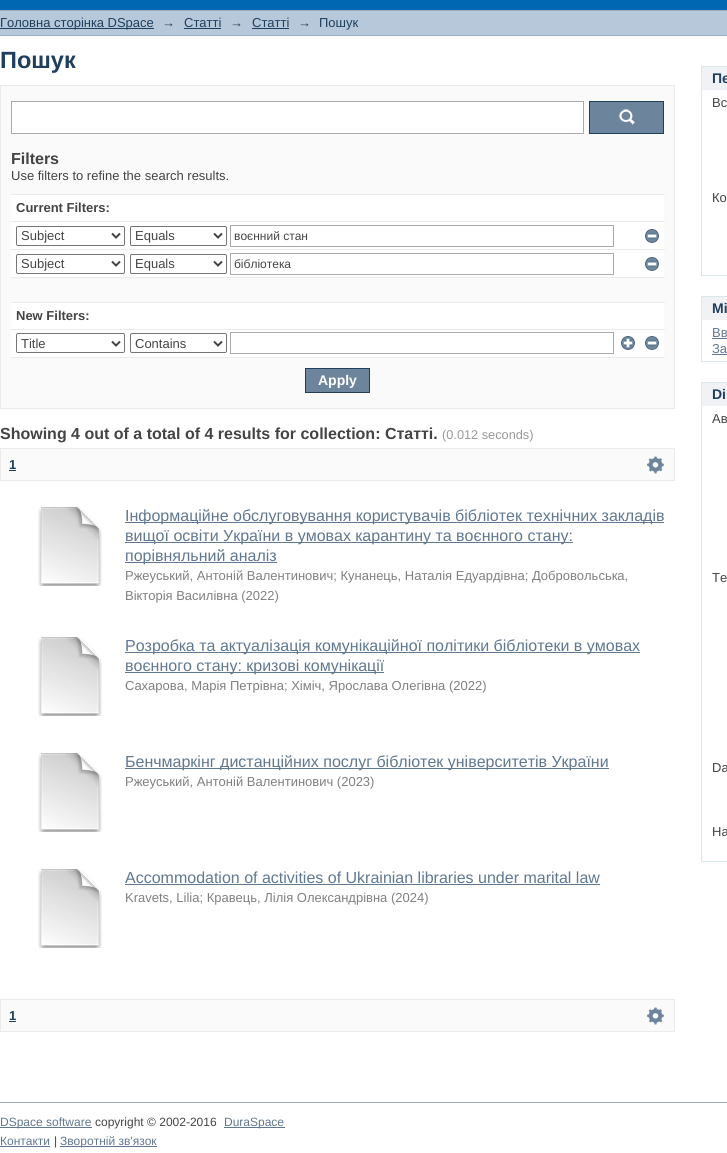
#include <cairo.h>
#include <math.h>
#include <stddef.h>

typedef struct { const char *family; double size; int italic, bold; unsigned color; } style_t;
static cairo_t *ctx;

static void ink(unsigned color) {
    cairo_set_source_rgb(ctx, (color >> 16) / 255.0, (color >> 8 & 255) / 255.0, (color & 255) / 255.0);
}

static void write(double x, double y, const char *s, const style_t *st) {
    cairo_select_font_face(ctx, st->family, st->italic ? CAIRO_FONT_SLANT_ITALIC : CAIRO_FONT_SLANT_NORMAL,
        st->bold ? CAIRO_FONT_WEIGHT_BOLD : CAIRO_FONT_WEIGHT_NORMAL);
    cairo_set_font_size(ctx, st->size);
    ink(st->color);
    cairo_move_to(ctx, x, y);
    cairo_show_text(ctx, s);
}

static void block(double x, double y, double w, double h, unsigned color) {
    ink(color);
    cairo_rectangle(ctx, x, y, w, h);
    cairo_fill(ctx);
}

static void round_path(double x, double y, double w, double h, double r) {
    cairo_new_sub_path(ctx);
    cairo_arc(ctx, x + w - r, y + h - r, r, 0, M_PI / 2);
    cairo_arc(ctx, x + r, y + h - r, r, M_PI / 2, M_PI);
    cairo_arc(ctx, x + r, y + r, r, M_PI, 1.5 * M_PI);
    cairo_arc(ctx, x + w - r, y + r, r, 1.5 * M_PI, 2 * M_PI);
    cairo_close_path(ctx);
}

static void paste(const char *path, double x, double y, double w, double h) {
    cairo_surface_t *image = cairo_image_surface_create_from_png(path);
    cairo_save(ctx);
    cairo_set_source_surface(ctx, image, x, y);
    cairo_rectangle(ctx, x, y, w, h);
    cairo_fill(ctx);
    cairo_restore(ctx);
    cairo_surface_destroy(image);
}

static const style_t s1 = {"Liberation Sans", 13, 0, 0, 0x1f3f5e};
static const style_t s2 = {"Liberation Sans", 23.5, 0, 1, 0x1f3f5e};
static const style_t s3 = {"Liberation Sans", 16, 0, 1, 0x444444};
static const style_t s4 = {"Liberation Sans", 13, 0, 0, 0x444444};
static const style_t s5 = {"Liberation Sans", 13, 0, 1, 0x444444};
static const style_t s6 = {"Liberation Sans", 12, 0, 0, 0x444444};
static const style_t s7 = {"Liberation Sans", 14, 0, 1, 0xffffff};
static const style_t s8 = {"Liberation Sans", 12.75, 0, 0, 0x999999};
static const style_t s9 = {"Liberation Sans", 13, 0, 1, 0x1f3f5e};
static const style_t s10 = {"Liberation Sans", 16, 0, 0, 0x607890};
static const style_t s11 = {"Liberation Sans", 13, 0, 0, 0x808080};
static const style_t s12 = {"Liberation Sans", 14, 0, 1, 0x1f3f5e};
static const style_t s13 = {"Liberation Sans", 13, 0, 0, 0x607890};
static const style_t s14 = {"Liberation Sans", 12, 0, 0, 0x607890};

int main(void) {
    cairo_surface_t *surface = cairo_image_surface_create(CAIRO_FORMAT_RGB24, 727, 1153);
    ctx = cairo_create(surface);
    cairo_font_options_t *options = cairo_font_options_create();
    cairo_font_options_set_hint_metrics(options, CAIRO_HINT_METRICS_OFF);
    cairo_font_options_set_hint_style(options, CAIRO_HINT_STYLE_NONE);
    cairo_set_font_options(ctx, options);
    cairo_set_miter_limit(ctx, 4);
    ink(0xffffff);
    cairo_paint(ctx);
    block(0, 0, 727, 10, 0x0067b2);
    block(0, 11, 727, 24, 0xb6c8d9);
    block(0, 10, 727, 1, 0x9cacba);
    block(0, 35, 727, 1, 0x9cacba);
    block(0, 28, 154, 1, 0x1f3f5e);
    write(0, 27, "Головна сторінка DSpace", &s1);
    write(162, 27, "→", &s1);
    write(184, 27, "Статті", &s1);
    block(184, 28, 37, 1, 0x1f3f5e);
    write(230, 27, "→", &s1);
    write(252, 27, "Статті", &s1);
    block(252, 28, 37, 1, 0x1f3f5e);
    write(298, 27, "→", &s1);
    write(319, 27, "Пошук", &s1);
    write(0, 68, "Пошук", &s2);
    ink(0xfafafa);
    cairo_rectangle(ctx, 0.5, 85.5, 674, 323);
    cairo_fill_preserve(ctx);
    ink(0xebebeb);
    cairo_set_line_width(ctx, 1);
    cairo_stroke(ctx);
    ink(0xffffff);
    cairo_rectangle(ctx, 11.5, 101.5, 572, 32);
    cairo_fill_preserve(ctx);
    ink(0xaaaaaa);
    cairo_stroke(ctx);
    block(590, 102, 73, 31, 0x6d859c);
    paste("pic1.png", 619, 109, 16, 16);
    cairo_rectangle(ctx, 589.5, 101.5, 74, 32);
    ink(0x1f3f5e);
    cairo_stroke(ctx);
    write(11, 164, "Filters", &s3);
    write(11, 180, "Use filters to refine the search results.", &s4);
    block(11, 195, 653, 162, 0xffffff);
    block(11, 194, 654, 1, 0xebebeb);
    write(16, 212, "Current Filters:", &s5);
    block(11, 221, 654, 1, 0xebebeb);
    round_path(16.5, 226.5, 108, 19, 1.5);
    ink(0x767676);
    cairo_stroke(ctx);
    cairo_new_path(ctx);
    cairo_move_to(ctx, 112, 233.5);
    cairo_line_to(ctx, 116, 237.5);
    cairo_line_to(ctx, 120, 233.5);
    ink(0x444444);
    cairo_set_line_width(ctx, 2);
    cairo_stroke(ctx);
    write(21, 240, "Subject", &s4);
    round_path(130.5, 226.5, 96, 19, 1.5);
    ink(0x767676);
    cairo_set_line_width(ctx, 1);
    cairo_stroke(ctx);
    cairo_new_path(ctx);
    cairo_move_to(ctx, 214, 233.5);
    cairo_line_to(ctx, 218, 237.5);
    cairo_line_to(ctx, 222, 233.5);
    ink(0x444444);
    cairo_set_line_width(ctx, 2);
    cairo_stroke(ctx);
    write(135, 240, "Equals", &s4);
    cairo_rectangle(ctx, 230.5, 225.5, 383, 21);
    ink(0xaaaaaa);
    cairo_set_line_width(ctx, 1);
    cairo_stroke(ctx);
    write(234, 240, "воєнний стан", &s6);
    paste("pic2.png", 645, 229, 14, 14);
    block(11, 249, 654, 1, 0xebebeb);
    round_path(16.5, 254.5, 108, 19, 1.5);
    ink(0x767676);
    cairo_stroke(ctx);
    cairo_new_path(ctx);
    cairo_move_to(ctx, 112, 261.5);
    cairo_line_to(ctx, 116, 265.5);
    cairo_line_to(ctx, 120, 261.5);
    ink(0x444444);
    cairo_set_line_width(ctx, 2);
    cairo_stroke(ctx);
    write(21, 268, "Subject", &s4);
    round_path(130.5, 254.5, 96, 19, 1.5);
    ink(0x767676);
    cairo_set_line_width(ctx, 1);
    cairo_stroke(ctx);
    cairo_new_path(ctx);
    cairo_move_to(ctx, 214, 261.5);
    cairo_line_to(ctx, 218, 265.5);
    cairo_line_to(ctx, 222, 261.5);
    ink(0x444444);
    cairo_set_line_width(ctx, 2);
    cairo_stroke(ctx);
    write(135, 268, "Equals", &s4);
    cairo_rectangle(ctx, 230.5, 253.5, 383, 21);
    ink(0xaaaaaa);
    cairo_set_line_width(ctx, 1);
    cairo_stroke(ctx);
    write(234, 268, "бібліотека", &s6);
    paste("pic2.png", 645, 257, 14, 14);
    block(11, 278, 653, 24, 0xfafafa);
    block(11, 277, 654, 1, 0xebebeb);
    block(11, 302, 654, 1, 0xebebeb);
    write(16, 320, "New Filters:", &s5);
    block(11, 329, 654, 1, 0xebebeb);
    round_path(16.5, 333.5, 108, 19, 1.5);
    ink(0x767676);
    cairo_stroke(ctx);
    cairo_new_path(ctx);
    cairo_move_to(ctx, 112, 341.5);
    cairo_line_to(ctx, 116, 345.5);
    cairo_line_to(ctx, 120, 341.5);
    ink(0x444444);
    cairo_set_line_width(ctx, 2);
    cairo_stroke(ctx);
    write(21, 348, "Title", &s4);
    round_path(130.5, 333.5, 96, 19, 1.5);
    ink(0x767676);
    cairo_set_line_width(ctx, 1);
    cairo_stroke(ctx);
    cairo_new_path(ctx);
    cairo_move_to(ctx, 214, 341.5);
    cairo_line_to(ctx, 218, 345.5);
    cairo_line_to(ctx, 222, 341.5);
    ink(0x444444);
    cairo_set_line_width(ctx, 2);
    cairo_stroke(ctx);
    write(135, 348, "Contains", &s4);
    cairo_rectangle(ctx, 230.5, 332.5, 383, 21);
    ink(0xaaaaaa);
    cairo_set_line_width(ctx, 1);
    cairo_stroke(ctx);
    paste("pic3.png", 621, 336, 14, 14);
    paste("pic2.png", 645, 336, 14, 14);
    block(11, 357, 654, 1, 0xebebeb);
    ink(0x6d859c);
    cairo_rectangle(ctx, 305.5, 368.5, 64, 24);
    cairo_fill_preserve(ctx);
    ink(0x1f3f5e);
    cairo_stroke(ctx);
    write(318, 385, "Apply", &s7);
    write(0, 439, "Showing 4 out of a total of 4 results for collection: Статті.", &s3);
    write(442, 439, "(0.012 seconds)", &s8);
    ink(0xfafafa);
    cairo_rectangle(ctx, 0.5, 448.5, 674, 32);
    cairo_fill_preserve(ctx);
    ink(0xebebeb);
    cairo_stroke(ctx);
    write(9, 469, "1", &s9);
    block(9, 470, 7, 1, 0x1f3f5e);
    paste("pic4.png", 647, 456, 17, 18);
    paste("pic5.png", 38, 507, 64, 79);
    block(125, 522, 539, 1, 0x607890);
    write(125, 521, "Інформаційне обслуговування користувачів бібліотек технічних закладів", &s10);
    block(125, 542, 448, 1, 0x607890);
    write(125, 541, "вищої освіти України в умовах карантину та воєнного стану:", &s10);
    block(125, 562, 152, 1, 0x607890);
    write(125, 561, "порівняльний аналіз", &s10);
    write(125, 580, "Ржеуський, Антоній Валентинович; Кунанець, Наталія Едуардівна; Добровольська,", &s11);
    write(125, 600, "Вікторія Василівна (2022)", &s11);
    paste("pic6.png", 38, 637, 64, 79);
    block(125, 652, 515, 1, 0x607890);
    write(125, 651, "Розробка та актуалізація комунікаційної політики бібліотеки в умовах", &s10);
    block(125, 672, 259, 1, 0x607890);
    write(125, 671, "воєнного стану: кризові комунікації", &s10);
    write(125, 690, "Сахарова, Марія Петрівна; Хіміч, Ярослава Олегівна (2022)", &s11);
    paste("pic6.png", 38, 753, 64, 79);
    block(125, 768, 484, 1, 0x607890);
    write(125, 767, "Бенчмаркінг дистанційних послуг бібліотек університетів України", &s10);
    write(125, 786, "Ржеуський, Антоній Валентинович (2023)", &s11);
    paste("pic6.png", 38, 869, 64, 79);
    write(125, 883, "Accommodation of activities of Ukrainian libraries under marital law", &s10);
    block(125, 884, 475, 1, 0x607890);
    write(125, 902, "Kravets, Lilia; Кравець, Лілія Олександрівна (2024)", &s11);
    ink(0xfafafa);
    cairo_rectangle(ctx, 0.5, 999.5, 674, 32);
    cairo_fill_preserve(ctx);
    ink(0xebebeb);
    cairo_stroke(ctx);
    write(9, 1020, "1", &s9);
    block(9, 1021, 7, 1, 0x1f3f5e);
    paste("pic4.png", 647, 1007, 17, 18);
    block(702, 67, 25, 23, 0xf0f2f5);
    block(701, 66, 26, 1, 0xd8e8eb);
    block(701, 66, 1, 24, 0xd8e8eb);
    write(712, 83, "Пе", &s12);
    block(701, 275, 26, 1, 0xd8e8eb);
    block(701, 90, 1, 186, 0xd8e8eb);
    write(712, 107, "Вс", &s4);
    write(712, 202, "Ко", &s4);
    block(702, 297, 25, 23, 0xf0f2f5);
    block(701, 296, 26, 1, 0xd8e8eb);
    block(701, 296, 1, 24, 0xd8e8eb);
    write(712, 313, "Мі", &s12);
    block(701, 361, 26, 1, 0xd8e8eb);
    block(701, 320, 1, 42, 0xd8e8eb);
    write(712, 337, "Вв", &s13);
    block(712, 338, 15, 1, 0x607890);
    write(712, 353, "За", &s13);
    block(712, 354, 15, 1, 0x607890);
    block(702, 383, 25, 23, 0xf0f2f5);
    block(701, 382, 26, 1, 0xd8e8eb);
    block(701, 382, 1, 24, 0xd8e8eb);
    write(712, 399, "Di", &s12);
    block(701, 861, 26, 1, 0xd8e8eb);
    block(701, 406, 1, 456, 0xd8e8eb);
    write(712, 423, "Ав", &s4);
    write(712, 582, "Те", &s4);
    write(712, 772, "Da", &s4);
    write(712, 836, "Ha", &s4);
    block(0, 1102, 727, 1, 0x9cacba);
    block(0, 1127, 92, 1, 0x607890);
    write(0, 1126, "DSpace software", &s14);
    write(95, 1126, "copyright © 2002-2016", &s6);
    block(224, 1127, 61, 1, 0x607890);
    write(224, 1126, "DuraSpace", &s14);
    write(0, 1145, "Контакти", &s14);
    block(0, 1146, 50, 1, 0x607890);
    write(54, 1145, "|", &s6);
    block(60, 1146, 97, 1, 0x607890);
    write(60, 1145, "Зворотній зв'язок", &s14);
    cairo_surface_write_to_png(surface, "screenshot.png");
    cairo_font_options_destroy(options);
    cairo_destroy(ctx);
    cairo_surface_destroy(surface);
    return 0;
}
